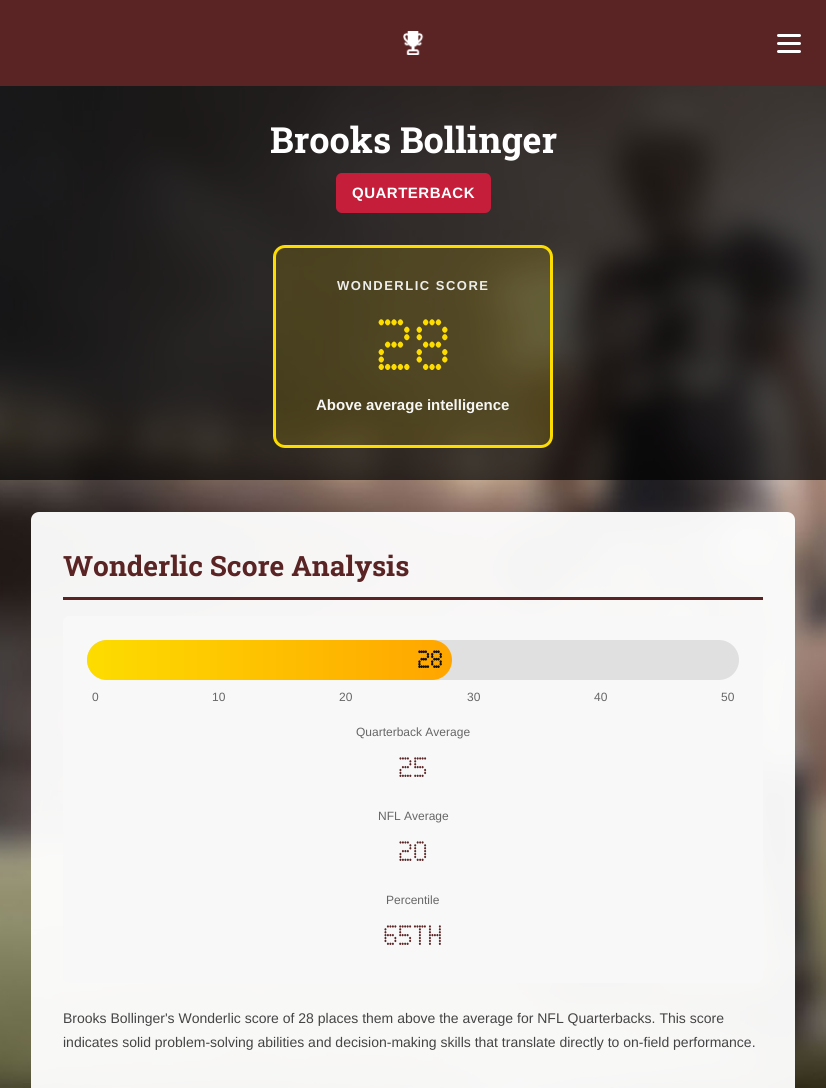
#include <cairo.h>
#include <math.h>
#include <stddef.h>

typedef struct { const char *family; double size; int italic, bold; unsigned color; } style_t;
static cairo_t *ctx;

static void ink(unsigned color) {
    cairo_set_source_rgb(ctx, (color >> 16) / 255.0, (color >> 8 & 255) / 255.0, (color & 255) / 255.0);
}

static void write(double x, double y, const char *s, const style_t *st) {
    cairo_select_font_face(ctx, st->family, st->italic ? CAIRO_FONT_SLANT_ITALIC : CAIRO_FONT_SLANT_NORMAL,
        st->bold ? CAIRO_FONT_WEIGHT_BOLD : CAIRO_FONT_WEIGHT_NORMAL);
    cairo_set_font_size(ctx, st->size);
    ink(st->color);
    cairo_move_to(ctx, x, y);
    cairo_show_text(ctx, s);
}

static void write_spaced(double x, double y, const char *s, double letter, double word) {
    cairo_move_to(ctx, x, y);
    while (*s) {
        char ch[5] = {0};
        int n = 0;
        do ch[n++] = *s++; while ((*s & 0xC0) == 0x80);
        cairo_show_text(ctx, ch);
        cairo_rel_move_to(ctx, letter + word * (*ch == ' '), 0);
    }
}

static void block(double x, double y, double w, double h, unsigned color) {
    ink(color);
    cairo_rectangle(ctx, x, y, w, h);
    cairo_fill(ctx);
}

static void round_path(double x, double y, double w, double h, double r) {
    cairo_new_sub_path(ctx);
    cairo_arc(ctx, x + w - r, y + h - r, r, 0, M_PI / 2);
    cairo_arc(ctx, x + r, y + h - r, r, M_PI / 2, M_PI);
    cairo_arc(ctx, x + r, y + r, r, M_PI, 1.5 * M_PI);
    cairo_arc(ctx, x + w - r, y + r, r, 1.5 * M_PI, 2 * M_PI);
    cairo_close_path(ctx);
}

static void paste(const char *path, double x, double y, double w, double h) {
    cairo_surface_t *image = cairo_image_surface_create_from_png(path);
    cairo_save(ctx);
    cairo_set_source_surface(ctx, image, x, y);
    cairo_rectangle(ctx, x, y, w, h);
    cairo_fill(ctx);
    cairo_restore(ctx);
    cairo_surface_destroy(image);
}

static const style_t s1 = {"Roboto Slab", 36, 0, 1, 0xffffff};
static const style_t s2 = {"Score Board", 72, 0, 0, 0xfddc00};
static const style_t s3 = {"Liberation Sans", 15, 0, 1, 0xf6f6f4};
static const style_t s4 = {"Roboto Slab", 28, 0, 1, 0x5a2425};
static const style_t s5 = {"Score Board", 24, 0, 1, 0x111111};
static const style_t s6 = {"Liberation Sans", 12, 0, 0, 0x666666};
static const style_t s7 = {"Score Board", 28, 0, 0, 0x5a2425};
static const style_t s8 = {"Liberation Sans", 14, 0, 0, 0x444444};

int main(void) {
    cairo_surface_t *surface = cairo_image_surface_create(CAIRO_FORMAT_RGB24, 826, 1088);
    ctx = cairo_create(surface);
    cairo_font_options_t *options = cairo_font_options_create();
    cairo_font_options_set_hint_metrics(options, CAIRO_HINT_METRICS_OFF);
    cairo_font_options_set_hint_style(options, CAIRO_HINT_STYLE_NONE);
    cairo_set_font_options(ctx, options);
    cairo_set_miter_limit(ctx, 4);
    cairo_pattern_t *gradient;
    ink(0xffffff);
    cairo_paint(ctx);
    paste("pic1.png", 0, 86, 826, 1002);
    block(0, 0, 826, 86, 0x5a2425);
    paste("pic2.png", 403, 31, 21, 24);
    ink(0xffffff);
    round_path(777, 34, 24, 3, 1.5);
    cairo_fill(ctx);
    round_path(777, 42, 24, 3, 1.5);
    cairo_fill(ctx);
    round_path(777, 50, 24, 3, 1.5);
    cairo_fill(ctx);
    cairo_set_source_rgba(ctx, 0, 0, 0, 0.7);
    cairo_rectangle(ctx, 0, 86, 826, 394);
    cairo_fill(ctx);
    write(270, 153, "Brooks Bollinger", &s1);
    ink(0xc41e3a);
    round_path(336, 173, 155, 40, 6);
    cairo_fill(ctx);
    cairo_select_font_face(ctx, "Liberation Sans", CAIRO_FONT_SLANT_NORMAL, CAIRO_FONT_WEIGHT_BOLD);
    cairo_set_font_size(ctx, 15);
    ink(0xffffff);
    write_spaced(352, 198, "QUARTERBACK", 0.5, 0);
    cairo_set_source_rgba(ctx, 0.992, 0.863, 0, 0.15);
    round_path(274.5, 246.5, 277, 200, 10.5);
    cairo_fill_preserve(ctx);
    ink(0xfddc00);
    cairo_set_line_width(ctx, 3);
    cairo_stroke(ctx);
    cairo_set_font_size(ctx, 13);
    ink(0xedede9);
    write_spaced(337, 290, "WONDERLIC SCORE", 1.5, 0);
    write(375, 370, "28", &s2);
    write(316, 410, "Above average intelligence", &s3);
    cairo_set_source_rgba(ctx, 1, 1, 1, 0.95);
    round_path(31, 512, 764, 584, 8);
    cairo_fill(ctx);
    block(63, 597, 700, 3, 0x5a2425);
    write(63, 576, "Wonderlic Score Analysis", &s4);
    ink(0xf8f8f8);
    round_path(63, 616, 700, 367, 6);
    cairo_fill(ctx);
    ink(0xe0e0e0);
    round_path(87, 640, 652, 40, 20);
    cairo_fill(ctx);
    gradient = cairo_pattern_create_linear(87, 660, 452, 660);
    cairo_pattern_add_color_stop_rgba(gradient, 0, 0.992, 0.863, 0, 1);
    cairo_pattern_add_color_stop_rgba(gradient, 1, 1, 0.647, 0, 1);
    cairo_set_source(ctx, gradient);
    cairo_pattern_destroy(gradient);
    round_path(87, 640, 365, 40, 20);
    cairo_fill(ctx);
    write(417, 668, "28", &s5);
    write(92, 701, "0", &s6);
    write(212, 701, "10", &s6);
    write(339, 701, "20", &s6);
    write(467, 701, "30", &s6);
    write(594, 701, "40", &s6);
    write(721, 701, "50", &s6);
    write(356, 736, "Quarterback Average", &s6);
    write(398, 777, "25", &s7);
    write(378, 820, "NFL Average", &s6);
    write(398, 861, "20", &s7);
    write(386, 904, "Percentile", &s6);
    write(383, 945, "65th", &s7);
    write(63, 1023, "Brooks Bollinger's Wonderlic score of 28 places them above the average for NFL Quarterbacks. This score", &s8);
    write(63, 1047, "indicates solid problem-solving abilities and decision-making skills that translate directly to on-field performance.", &s8);
    cairo_surface_write_to_png(surface, "screenshot.png");
    cairo_font_options_destroy(options);
    cairo_destroy(ctx);
    cairo_surface_destroy(surface);
    return 0;
}
